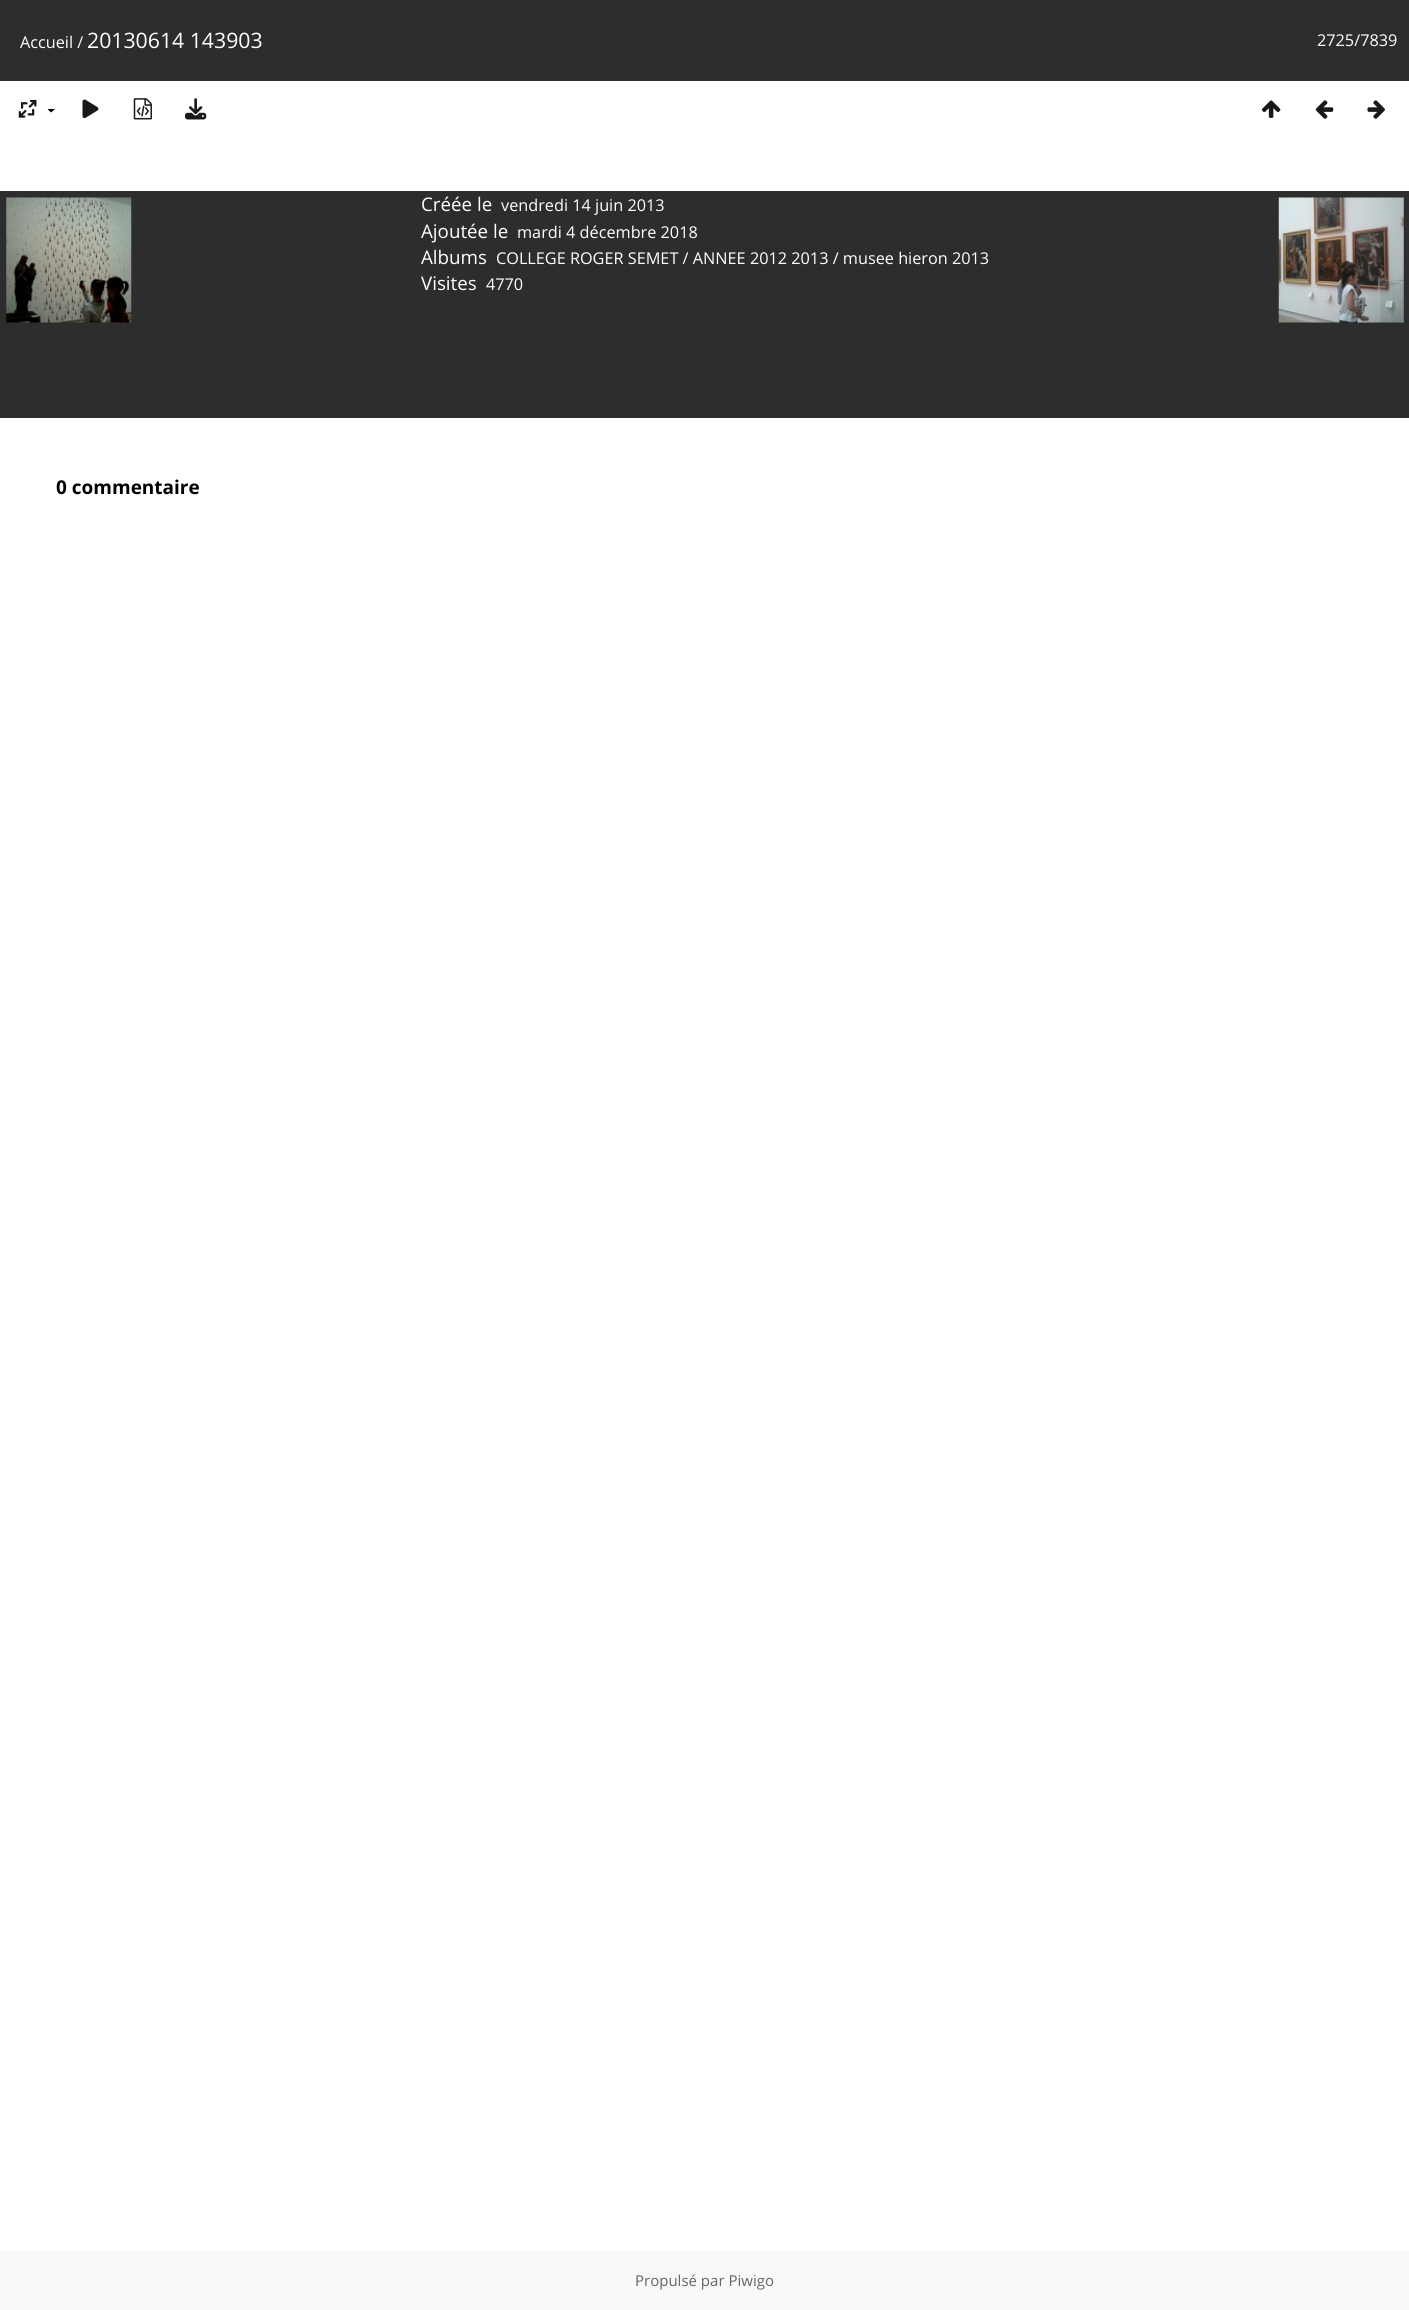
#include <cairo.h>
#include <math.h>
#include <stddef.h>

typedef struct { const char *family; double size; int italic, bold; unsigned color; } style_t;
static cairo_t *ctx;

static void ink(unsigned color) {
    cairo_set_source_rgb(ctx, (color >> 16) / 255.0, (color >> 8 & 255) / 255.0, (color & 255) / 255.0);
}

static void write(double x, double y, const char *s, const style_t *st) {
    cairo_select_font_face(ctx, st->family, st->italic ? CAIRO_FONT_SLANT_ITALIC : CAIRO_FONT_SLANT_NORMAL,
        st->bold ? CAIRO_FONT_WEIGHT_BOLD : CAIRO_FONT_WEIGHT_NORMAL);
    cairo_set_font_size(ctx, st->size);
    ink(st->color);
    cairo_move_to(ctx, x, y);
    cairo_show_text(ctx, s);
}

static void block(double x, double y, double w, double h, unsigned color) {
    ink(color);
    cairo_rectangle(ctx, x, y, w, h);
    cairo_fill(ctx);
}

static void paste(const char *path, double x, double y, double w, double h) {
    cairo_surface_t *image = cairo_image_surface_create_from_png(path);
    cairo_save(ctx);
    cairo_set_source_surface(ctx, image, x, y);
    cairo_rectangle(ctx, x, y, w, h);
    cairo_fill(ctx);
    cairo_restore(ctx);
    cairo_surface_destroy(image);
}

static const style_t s1 = {"Open Sans", 16.25, 0, 0, 0xffffff};
static const style_t s2 = {"Open Sans", 21.25, 0, 0, 0xffffff};
static const style_t s3 = {"Open Sans", 18.75, 0, 0, 0xffffff};
static const style_t s4 = {"Open Sans", 19, 0, 1, 0x000000};
static const style_t s5 = {"Open Sans", 15, 0, 0, 0x666666};

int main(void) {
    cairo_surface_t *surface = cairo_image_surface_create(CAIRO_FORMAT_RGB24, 1409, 2310);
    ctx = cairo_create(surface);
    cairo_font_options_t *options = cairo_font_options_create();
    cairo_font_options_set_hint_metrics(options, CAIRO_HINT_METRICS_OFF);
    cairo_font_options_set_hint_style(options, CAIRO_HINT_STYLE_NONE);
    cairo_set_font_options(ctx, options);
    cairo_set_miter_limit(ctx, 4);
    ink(0xffffff);
    cairo_paint(ctx);
    block(0, 0, 1409, 81, 0x2d2d2d);
    write(20, 48, "Accueil /", &s1);
    write(87, 48, "20130614 143903", &s2);
    write(1317, 46, "2725/7839", &s1);
    paste("pic1.png", 18, 99, 19, 19);
    ink(0x000000);
    cairo_new_path(ctx);
    cairo_move_to(ctx, 47.5, 109);
    cairo_line_to(ctx, 55, 109);
    cairo_line_to(ctx, 51, 112.5);
    cairo_close_path(ctx);
    cairo_fill(ctx);
    paste("pic2.png", 82, 99, 17, 20);
    paste("pic3.png", 133, 98, 19, 22);
    paste("pic4.png", 185, 98, 22, 22);
    paste("pic5.png", 1261, 100, 20, 18);
    paste("pic6.png", 1315, 100, 19, 19);
    paste("pic7.png", 1367, 100, 18, 19);
    block(0, 191, 1409, 227, 0x2d2d2d);
    write(421, 211, "Créée le", &s3);
    write(501, 211, "vendredi 14 juin 2013", &s1);
    write(421, 238, "Ajoutée le", &s3);
    write(517, 238, "mardi 4 décembre 2018", &s1);
    write(421, 264, "Albums", &s3);
    write(496, 264, "COLLEGE ROGER SEMET / ANNEE 2012 2013 / musee hieron 2013", &s1);
    write(421, 290, "Visites", &s3);
    write(486, 290, "4770", &s1);
    paste("pic8.png", 6, 197, 126, 126);
    paste("pic9.png", 1278, 197, 126, 126);
    write(56, 494, "0 commentaire", &s4);
    block(0, 2251, 1409, 59, 0xf9f9f9);
    write(635, 2286, "Propulsé par Piwigo", &s5);
    cairo_surface_write_to_png(surface, "screenshot.png");
    cairo_font_options_destroy(options);
    cairo_destroy(ctx);
    cairo_surface_destroy(surface);
    return 0;
}
